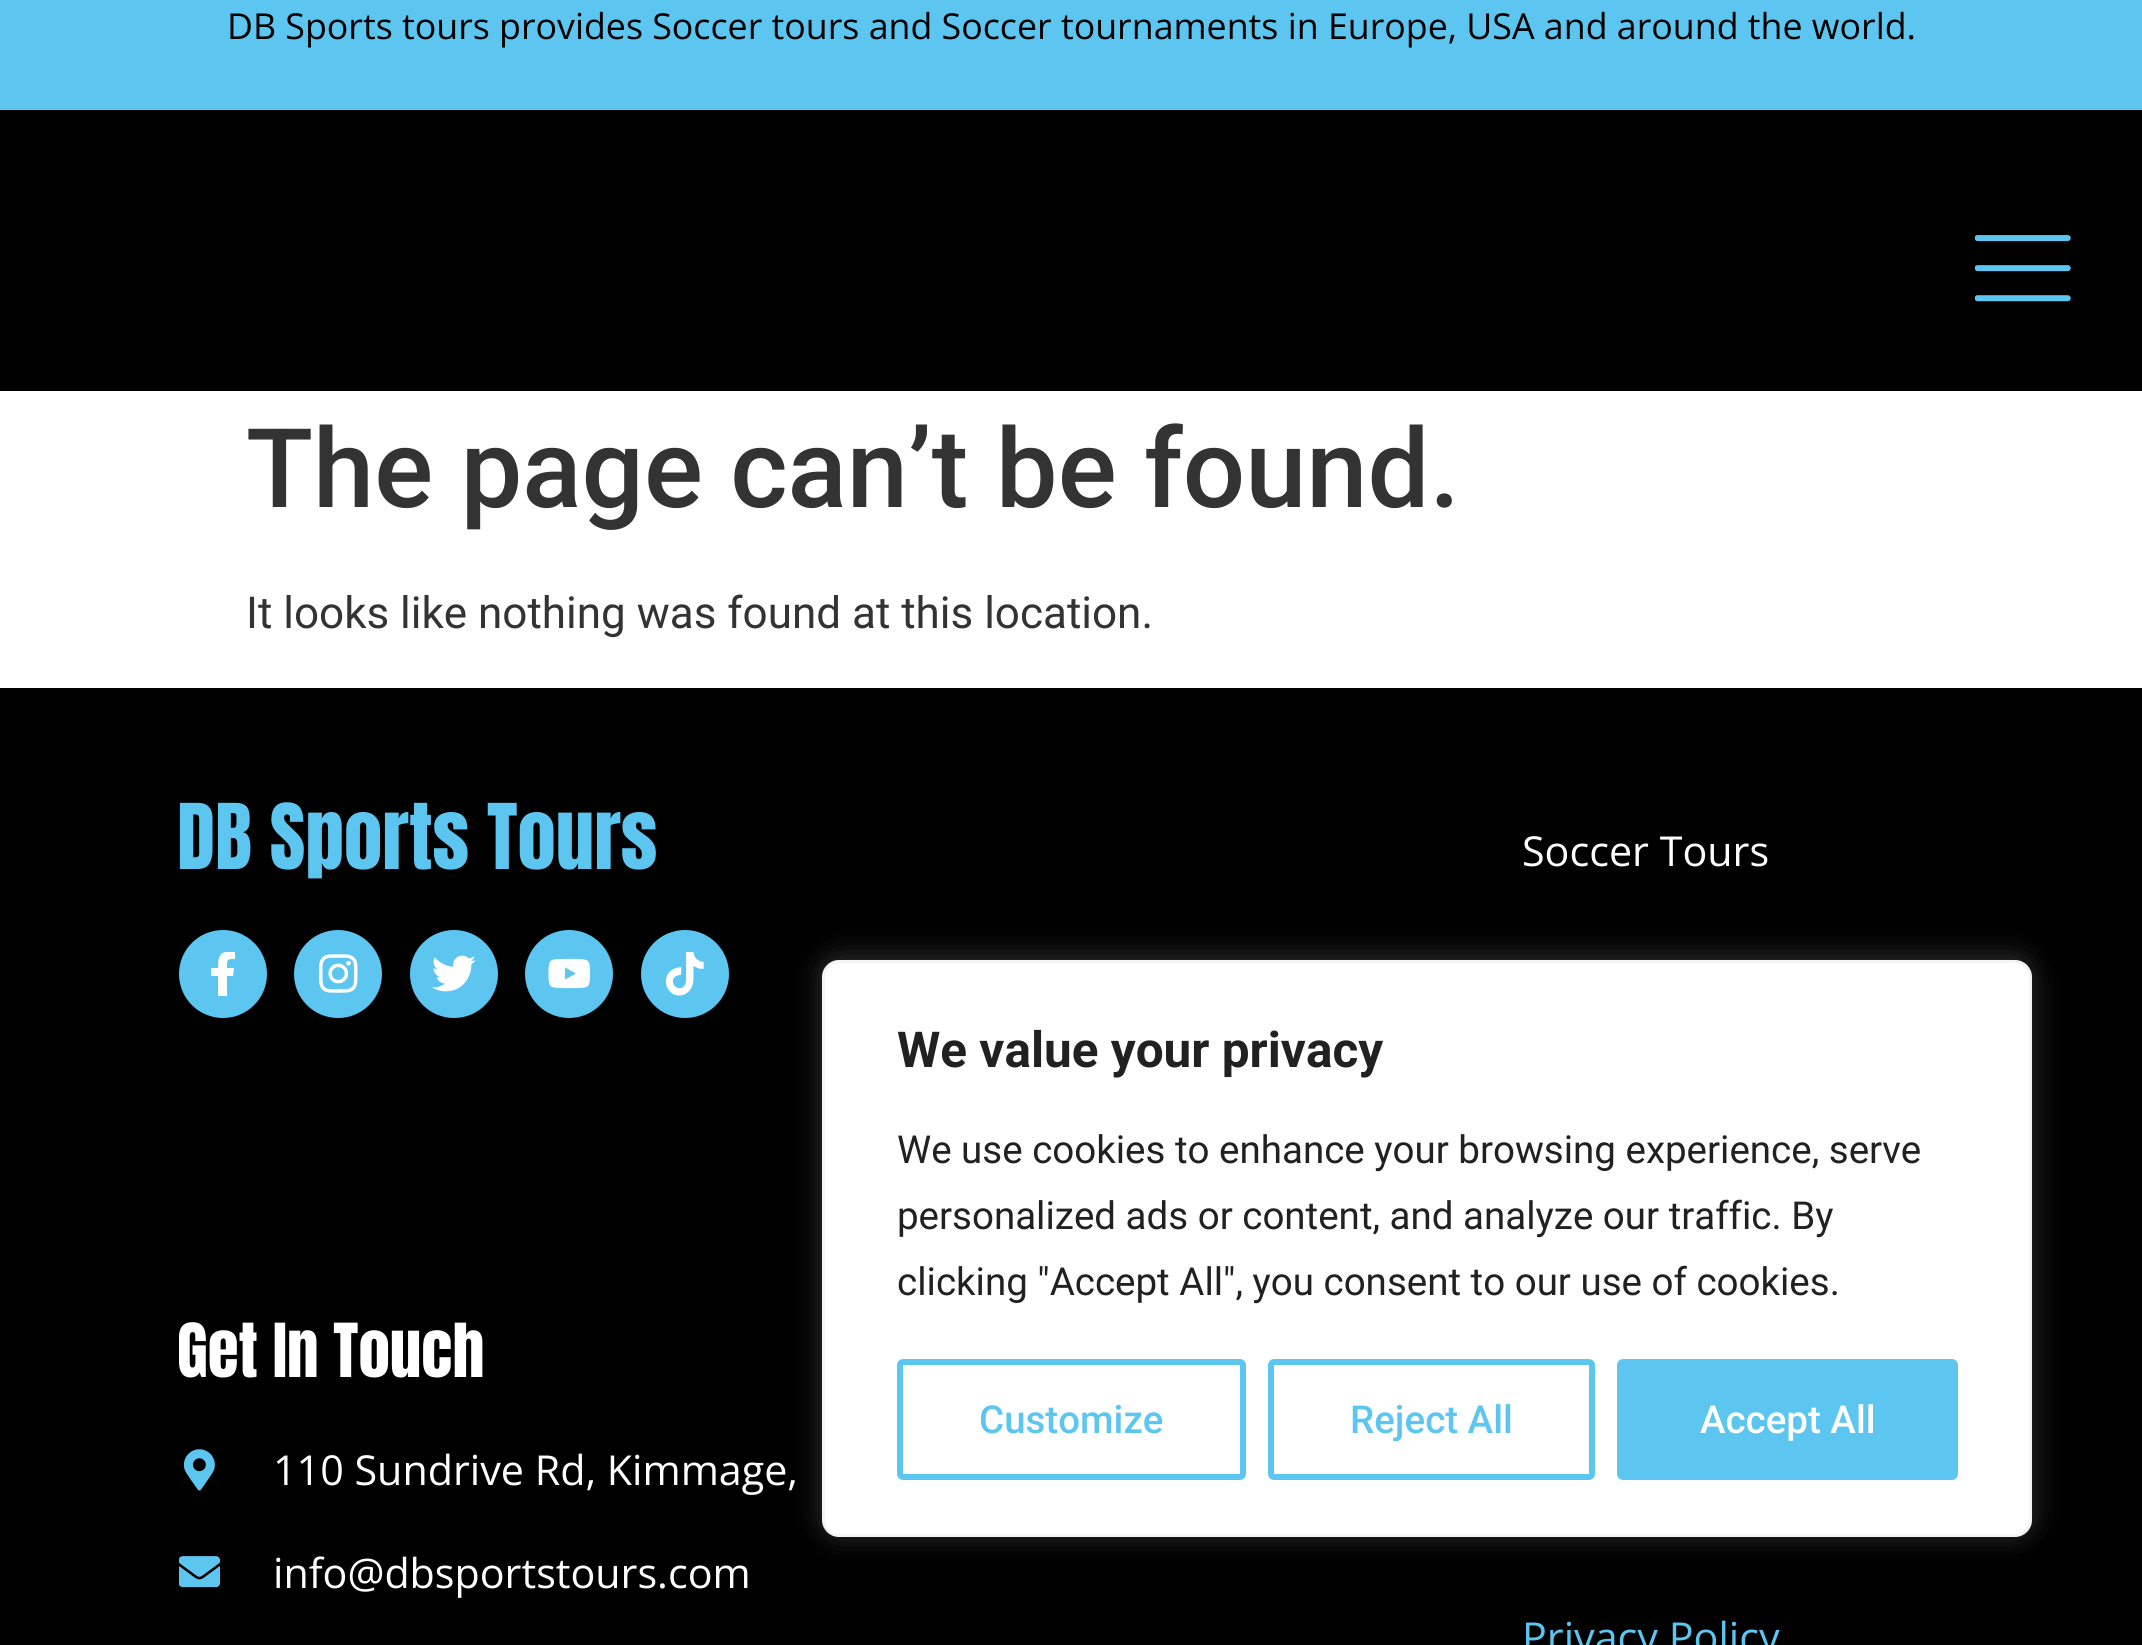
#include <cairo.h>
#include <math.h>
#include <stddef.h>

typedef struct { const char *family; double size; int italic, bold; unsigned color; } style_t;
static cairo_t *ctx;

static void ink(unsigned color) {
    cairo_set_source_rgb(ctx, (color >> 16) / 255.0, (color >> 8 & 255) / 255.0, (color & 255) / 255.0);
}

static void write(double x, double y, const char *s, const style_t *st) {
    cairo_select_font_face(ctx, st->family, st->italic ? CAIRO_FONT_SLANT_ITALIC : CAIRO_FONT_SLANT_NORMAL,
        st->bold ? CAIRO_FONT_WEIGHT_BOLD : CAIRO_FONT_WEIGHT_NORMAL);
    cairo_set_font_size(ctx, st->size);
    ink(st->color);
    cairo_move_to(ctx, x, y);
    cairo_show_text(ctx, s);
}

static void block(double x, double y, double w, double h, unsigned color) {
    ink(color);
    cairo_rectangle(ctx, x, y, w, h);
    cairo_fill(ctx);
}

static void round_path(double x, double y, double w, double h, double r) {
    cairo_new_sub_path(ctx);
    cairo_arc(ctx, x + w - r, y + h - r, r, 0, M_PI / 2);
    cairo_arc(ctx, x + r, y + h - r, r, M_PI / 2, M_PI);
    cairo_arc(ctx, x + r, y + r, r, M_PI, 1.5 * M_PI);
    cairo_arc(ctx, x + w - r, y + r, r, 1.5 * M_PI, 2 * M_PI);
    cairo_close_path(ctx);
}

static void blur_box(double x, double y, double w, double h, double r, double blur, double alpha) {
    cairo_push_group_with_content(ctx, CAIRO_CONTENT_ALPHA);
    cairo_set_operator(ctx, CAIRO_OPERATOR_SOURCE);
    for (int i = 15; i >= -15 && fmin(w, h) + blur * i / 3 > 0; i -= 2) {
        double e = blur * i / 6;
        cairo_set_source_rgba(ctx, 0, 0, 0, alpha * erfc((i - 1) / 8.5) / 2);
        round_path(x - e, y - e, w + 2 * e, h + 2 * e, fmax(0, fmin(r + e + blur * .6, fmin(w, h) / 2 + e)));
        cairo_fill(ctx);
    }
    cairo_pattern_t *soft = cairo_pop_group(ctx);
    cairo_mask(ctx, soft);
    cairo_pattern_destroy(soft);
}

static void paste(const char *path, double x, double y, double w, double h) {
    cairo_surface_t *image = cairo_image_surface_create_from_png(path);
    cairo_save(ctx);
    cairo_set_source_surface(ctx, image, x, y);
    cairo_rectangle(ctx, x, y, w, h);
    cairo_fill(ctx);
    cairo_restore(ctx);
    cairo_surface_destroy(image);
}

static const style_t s1 = {"Open Sans", 35.75, 0, 0, 0x000000};
static const style_t s2 = {"Roboto Medium", 110, 0, 0, 0x333333};
static const style_t s3 = {"Roboto", 44, 0, 0, 0x333333};
static const style_t s4 = {"Anton", 77, 0, 0, 0x5cc6f0};
static const style_t s5 = {"Anton", 63.25, 0, 0, 0xffffff};
static const style_t s6 = {"Open Sans", 41.25, 0, 0, 0xffffff};
static const style_t s7 = {"Open Sans", 41.25, 0, 0, 0x5cc6f0};
static const style_t s8 = {"Roboto", 49.5, 0, 1, 0x212121};
static const style_t s9 = {"Roboto", 38.5, 0, 0, 0x212121};
static const style_t s10 = {"Roboto Medium", 38.5, 0, 0, 0x5cc6f0};
static const style_t s11 = {"Roboto Medium", 38.5, 0, 0, 0xffffff};

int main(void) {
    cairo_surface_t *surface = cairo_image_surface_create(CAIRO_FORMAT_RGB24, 2142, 1645);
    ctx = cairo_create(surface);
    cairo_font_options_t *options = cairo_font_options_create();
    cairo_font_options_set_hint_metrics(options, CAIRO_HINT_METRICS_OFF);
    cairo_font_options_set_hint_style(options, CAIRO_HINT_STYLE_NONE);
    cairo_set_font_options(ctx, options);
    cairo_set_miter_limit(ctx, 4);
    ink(0xffffff);
    cairo_paint(ctx);
    block(0, 0, 2142, 110, 0x5cc6f0);
    write(227, 39, "DB Sports tours provides Soccer tours and Soccer tournaments in Europe, USA and around the world.", &s1);
    block(0, 110, 2142, 281, 0x000000);
    paste("pic1.png", 1975, 235, 96, 67);
    write(246, 507, "The page can’t be found.", &s2);
    write(246, 628, "It looks like nothing was found at this location.", &s3);
    block(0, 688, 2142, 957, 0x000000);
    write(177, 869, "DB Sports Tours", &s4);
    cairo_new_path(ctx);
    cairo_arc(ctx, 223, 974, 44, 0, 2 * M_PI);
    cairo_fill(ctx);
    cairo_save(ctx);
    cairo_rectangle(ctx, 201, 952, 44, 44);
    cairo_clip(ctx);
    ink(0xffffff);
    cairo_new_path(ctx);
    cairo_move_to(ctx, 233, 976);
    cairo_line_to(ctx, 234, 968);
    cairo_line_to(ctx, 227, 968);
    cairo_curve_to(ctx, 227, 960, 226, 959, 235, 959);
    cairo_line_to(ctx, 235, 952);
    cairo_curve_to(ctx, 220, 950, 218, 955, 218, 968);
    cairo_line_to(ctx, 211, 968);
    cairo_line_to(ctx, 211, 976);
    cairo_line_to(ctx, 218, 976);
    cairo_line_to(ctx, 218, 996);
    cairo_line_to(ctx, 227, 996);
    cairo_line_to(ctx, 227, 976);
    cairo_close_path(ctx);
    cairo_fill(ctx);
    cairo_restore(ctx);
    cairo_arc(ctx, 338, 974, 44, 0, 2 * M_PI);
    cairo_fill(ctx);
    paste("pic2.png", 319, 954, 39, 39);
    cairo_arc(ctx, 454, 974, 44, 0, 2 * M_PI);
    cairo_fill(ctx);
    paste("pic3.png", 432, 955, 44, 37);
    cairo_arc(ctx, 569, 974, 44, 0, 2 * M_PI);
    cairo_fill(ctx);
    paste("pic4.png", 548, 958, 43, 31);
    cairo_arc(ctx, 685, 974, 44, 0, 2 * M_PI);
    cairo_fill(ctx);
    paste("pic5.png", 665, 952, 39, 44);
    write(177, 1377, "Get In Touch", &s5);
    paste("pic6.png", 183, 1449, 32, 42);
    write(273, 1485, "110 Sundrive Rd, Kimmage,", &s6);
    paste("pic7.png", 179, 1556, 41, 32);
    write(273, 1588, "info@dbsportstours.com", &s6);
    write(1522, 866, "Soccer Tours", &s6);
    write(1522, 1652, "Privacy Policy", &s7);
    ink(0xacabab);
    blur_box(822, 957, 1210, 578, 17, 14, 0.3);
    ink(0xffffff);
    round_path(823.5, 961.5, 1207, 574, 15.5);
    cairo_fill_preserve(ctx);
    ink(0xf4f4f4);
    cairo_set_line_width(ctx, 3);
    cairo_stroke(ctx);
    write(897, 1067, "We value your privacy", &s8);
    write(897, 1163, "We use cookies to enhance your browsing experience, serve", &s9);
    write(897, 1229, "personalized ads or content, and analyze our traffic. By", &s9);
    write(897, 1295, "clicking \"Accept All\", you consent to our use of cookies.", &s9);
    round_path(900, 1362, 343, 115, 3);
    ink(0x5cc6f0);
    cairo_set_line_width(ctx, 6);
    cairo_stroke(ctx);
    write(979, 1433, "Customize", &s10);
    round_path(1271, 1362, 321, 115, 3);
    cairo_stroke(ctx);
    write(1350, 1433, "Reject All", &s10);
    round_path(1620, 1362, 335, 115, 3);
    cairo_fill_preserve(ctx);
    cairo_stroke(ctx);
    write(1700, 1433, "Accept All", &s11);
    cairo_surface_write_to_png(surface, "screenshot.png");
    cairo_font_options_destroy(options);
    cairo_destroy(ctx);
    cairo_surface_destroy(surface);
    return 0;
}
